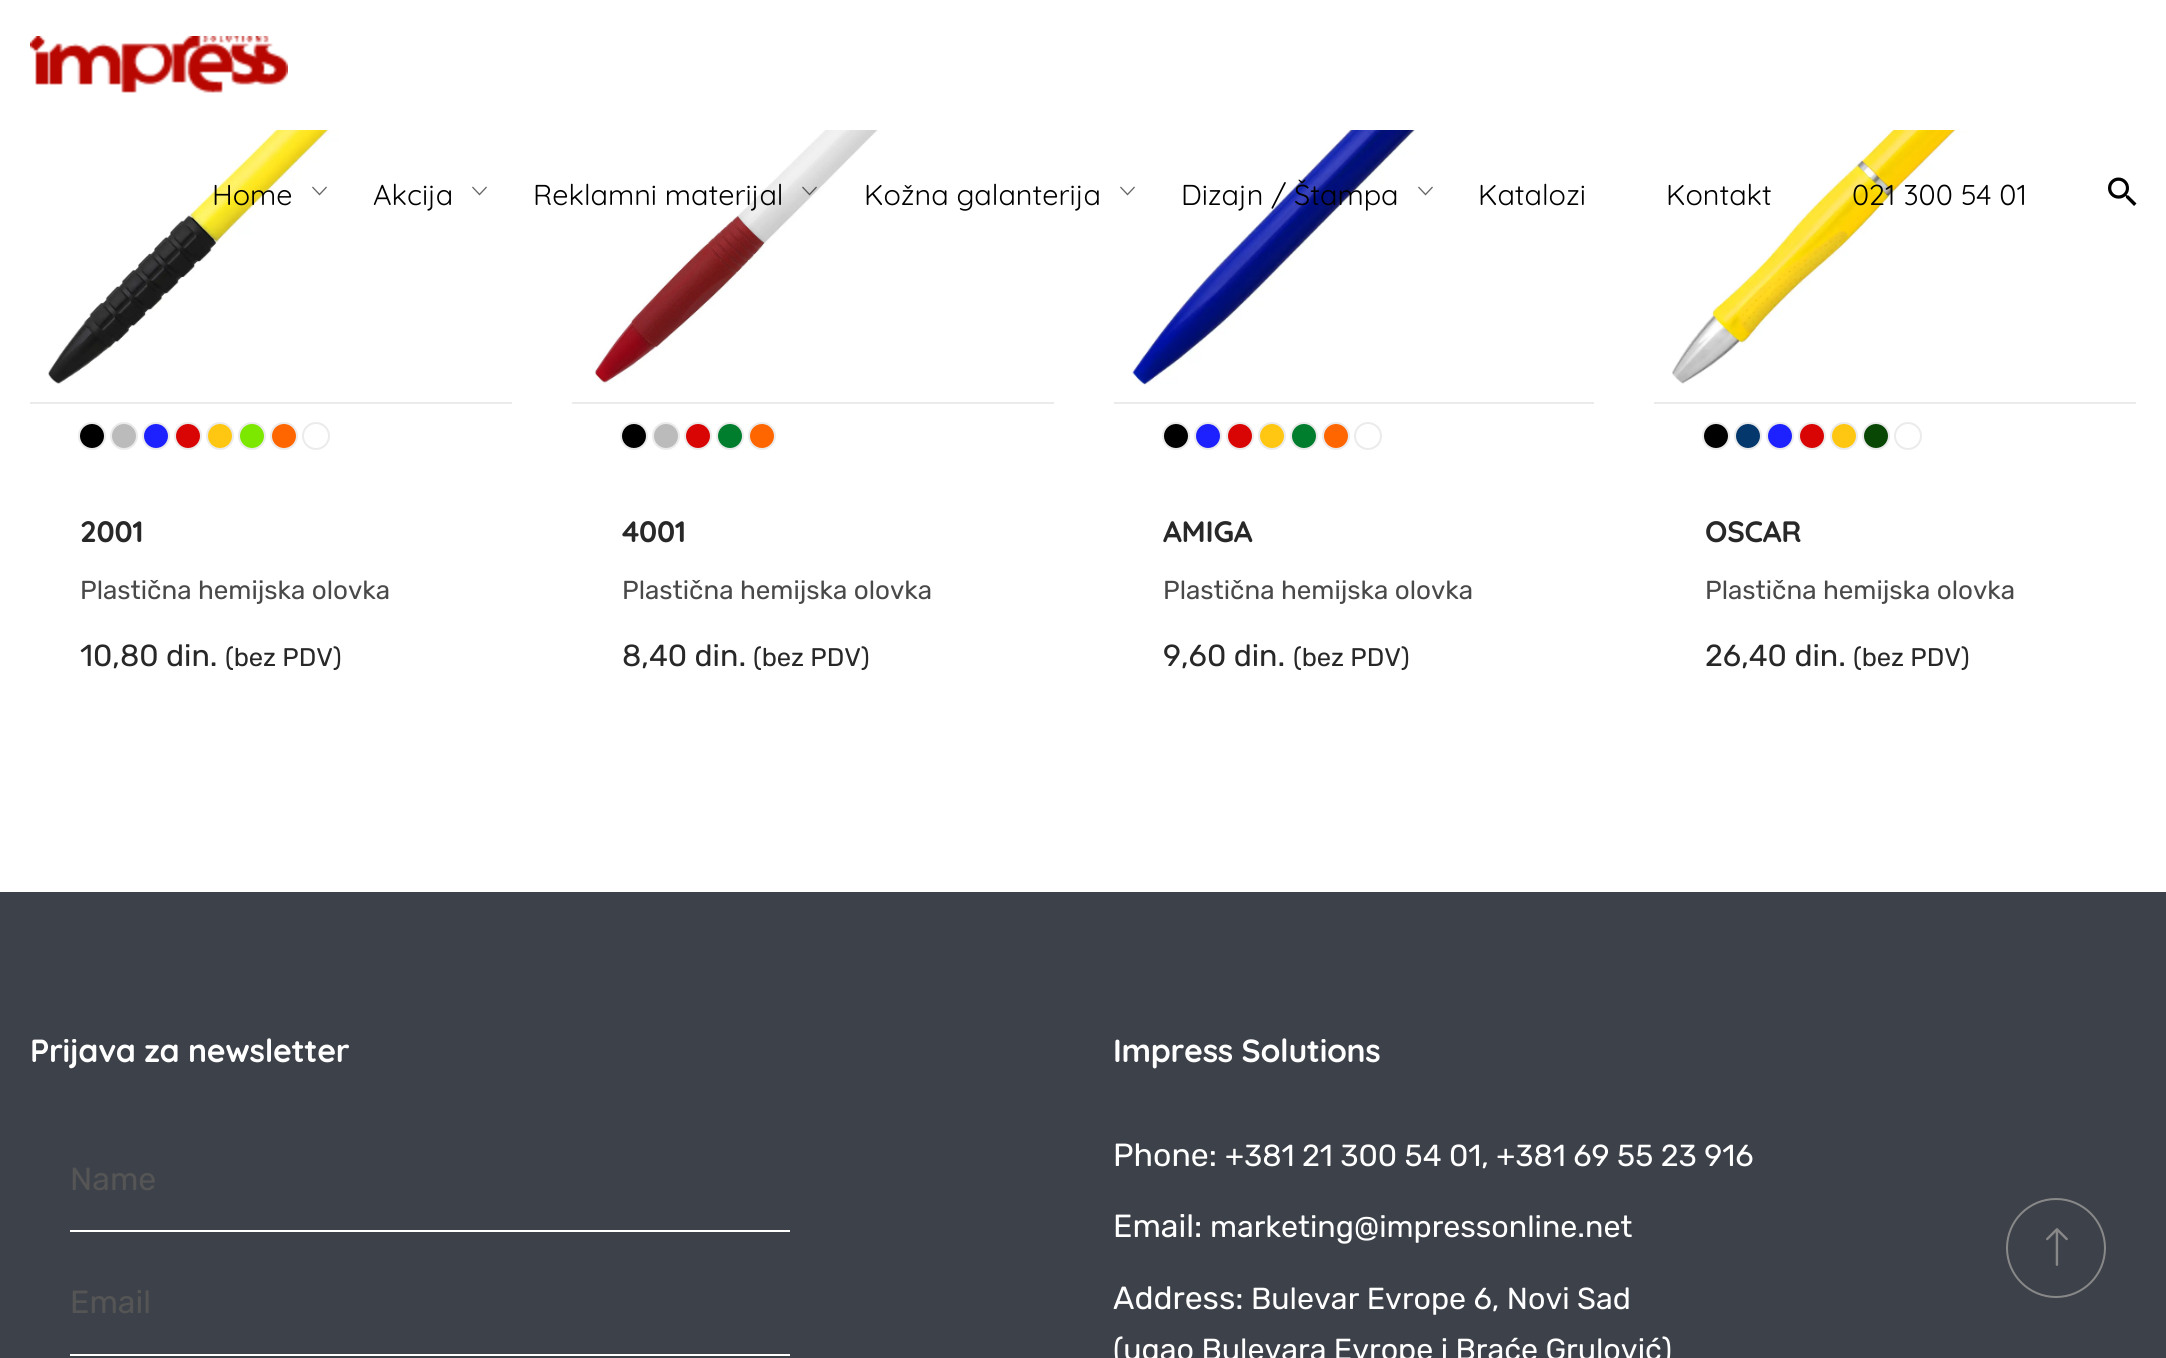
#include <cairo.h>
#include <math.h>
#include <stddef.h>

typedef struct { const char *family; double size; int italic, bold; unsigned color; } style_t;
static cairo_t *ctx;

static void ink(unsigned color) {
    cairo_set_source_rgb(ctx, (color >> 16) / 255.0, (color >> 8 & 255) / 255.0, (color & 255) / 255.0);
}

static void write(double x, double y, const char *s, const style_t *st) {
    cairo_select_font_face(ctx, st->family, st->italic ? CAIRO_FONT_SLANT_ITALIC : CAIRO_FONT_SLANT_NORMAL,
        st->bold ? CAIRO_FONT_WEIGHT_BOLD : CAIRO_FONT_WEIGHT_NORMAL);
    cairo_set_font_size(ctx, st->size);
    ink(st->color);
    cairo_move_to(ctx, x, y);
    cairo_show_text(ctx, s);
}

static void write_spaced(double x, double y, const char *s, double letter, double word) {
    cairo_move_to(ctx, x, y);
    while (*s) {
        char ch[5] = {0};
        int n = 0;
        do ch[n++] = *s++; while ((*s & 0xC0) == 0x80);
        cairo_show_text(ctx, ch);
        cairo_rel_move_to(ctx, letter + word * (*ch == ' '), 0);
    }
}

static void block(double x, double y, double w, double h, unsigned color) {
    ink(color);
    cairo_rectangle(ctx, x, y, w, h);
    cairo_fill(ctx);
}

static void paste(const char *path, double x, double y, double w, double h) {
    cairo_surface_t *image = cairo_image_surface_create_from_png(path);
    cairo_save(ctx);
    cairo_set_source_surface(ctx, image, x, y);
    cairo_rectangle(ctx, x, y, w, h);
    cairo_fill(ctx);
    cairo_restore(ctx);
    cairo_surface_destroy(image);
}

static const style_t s1 = {"Quicksand", 28.75, 0, 0, 0x000000};
static const style_t s2 = {"Rubik", 26, 0, 0, 0x494949};
static const style_t s3 = {"Rubik", 30.4, 0, 0, 0x282828};
static const style_t s4 = {"Rubik", 25.5, 0, 0, 0x282828};
static const style_t s5 = {"Rubik", 32, 0, 0, 0x555555};
static const style_t s6 = {"Rubik", 32, 0, 0, 0xffffff};
static const style_t s7 = {"Rubik", 30.4, 0, 0, 0xffffff};

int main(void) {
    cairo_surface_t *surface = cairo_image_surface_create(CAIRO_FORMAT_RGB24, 2166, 1358);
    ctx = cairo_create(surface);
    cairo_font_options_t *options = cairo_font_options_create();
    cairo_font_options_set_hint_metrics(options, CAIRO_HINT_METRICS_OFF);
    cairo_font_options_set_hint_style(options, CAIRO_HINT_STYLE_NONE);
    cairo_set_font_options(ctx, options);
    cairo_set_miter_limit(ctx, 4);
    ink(0xffffff);
    cairo_paint(ctx);
    paste("pic1.png", 30, 36, 258, 57);
    paste("pic5.png", 48, 130, 406, 254);
    write(212, 205, "Home", &s1);
    paste("pic2.png", 312, 186, 15, 10);
    write(373, 205, "Akcija", &s1);
    paste("pic2.png", 472, 186, 15, 10);
    paste("pic6.png", 594, 130, 410, 254);
    write(533, 205, "Reklamni materijal", &s1);
    paste("pic3.png", 802, 186, 15, 10);
    write(864, 205, "Kožna galanterija", &s1);
    paste("pic7.png", 1131, 130, 412, 255);
    paste("pic2.png", 1120, 186, 15, 10);
    write(1181, 205, "Dizajn / Štampa", &s1);
    paste("pic2.png", 1418, 186, 15, 10);
    write(1478, 205, "Katalozi", &s1);
    paste("pic8.png", 1672, 130, 414, 254);
    write(1666, 205, "Kontakt", &s1);
    write(1852, 205, "021 300 54 01", &s1);
    paste("pic4.png", 2108, 177, 29, 29);
    block(30, 402, 482, 2, 0xebebeb);
    ink(0x000000);
    cairo_arc(ctx, 92, 436, 13, 0, 2 * M_PI);
    cairo_fill_preserve(ctx);
    ink(0xebebeb);
    cairo_stroke(ctx);
    ink(0xbbbbbb);
    cairo_arc(ctx, 124, 436, 13, 0, 2 * M_PI);
    cairo_fill_preserve(ctx);
    ink(0xebebeb);
    cairo_stroke(ctx);
    ink(0x1d21ff);
    cairo_arc(ctx, 156, 436, 13, 0, 2 * M_PI);
    cairo_fill_preserve(ctx);
    ink(0xebebeb);
    cairo_stroke(ctx);
    ink(0xd90504);
    cairo_arc(ctx, 188, 436, 13, 0, 2 * M_PI);
    cairo_fill_preserve(ctx);
    ink(0xebebeb);
    cairo_stroke(ctx);
    ink(0xffc711);
    cairo_arc(ctx, 220, 436, 13, 0, 2 * M_PI);
    cairo_fill_preserve(ctx);
    ink(0xebebeb);
    cairo_stroke(ctx);
    ink(0x7ce800);
    cairo_arc(ctx, 252, 436, 13, 0, 2 * M_PI);
    cairo_fill_preserve(ctx);
    ink(0xebebeb);
    cairo_stroke(ctx);
    ink(0xff6600);
    cairo_arc(ctx, 284, 436, 13, 0, 2 * M_PI);
    cairo_fill_preserve(ctx);
    ink(0xebebeb);
    cairo_stroke(ctx);
    cairo_arc(ctx, 316, 436, 13, 0, 2 * M_PI);
    cairo_stroke(ctx);
    cairo_select_font_face(ctx, "Quicksand", CAIRO_FONT_SLANT_NORMAL, CAIRO_FONT_WEIGHT_BOLD);
    cairo_set_font_size(ctx, 29.5);
    ink(0x282828);
    write_spaced(80, 542, "2001", -0.25, 0);
    write(80, 599, "Plastična hemijska olovka", &s2);
    write(80, 666, "10,80 din.", &s3);
    write(225, 666, "(bez PDV)", &s4);
    block(572, 402, 482, 2, 0xebebeb);
    ink(0x000000);
    cairo_new_path(ctx);
    cairo_arc(ctx, 634, 436, 13, 0, 2 * M_PI);
    cairo_fill_preserve(ctx);
    ink(0xebebeb);
    cairo_stroke(ctx);
    ink(0xbbbbbb);
    cairo_arc(ctx, 666, 436, 13, 0, 2 * M_PI);
    cairo_fill_preserve(ctx);
    ink(0xebebeb);
    cairo_stroke(ctx);
    ink(0xd90504);
    cairo_arc(ctx, 698, 436, 13, 0, 2 * M_PI);
    cairo_fill_preserve(ctx);
    ink(0xebebeb);
    cairo_stroke(ctx);
    ink(0x007d2d);
    cairo_arc(ctx, 730, 436, 13, 0, 2 * M_PI);
    cairo_fill_preserve(ctx);
    ink(0xebebeb);
    cairo_stroke(ctx);
    ink(0xff6600);
    cairo_arc(ctx, 762, 436, 13, 0, 2 * M_PI);
    cairo_fill_preserve(ctx);
    ink(0xebebeb);
    cairo_stroke(ctx);
    cairo_select_font_face(ctx, "Quicksand", CAIRO_FONT_SLANT_NORMAL, CAIRO_FONT_WEIGHT_BOLD);
    cairo_set_font_size(ctx, 29.5);
    ink(0x282828);
    write_spaced(622, 542, "4001", -0.25, 0);
    write(622, 599, "Plastična hemijska olovka", &s2);
    write(622, 666, "8,40 din.", &s3);
    write(753, 666, "(bez PDV)", &s4);
    block(1114, 402, 480, 2, 0xebebeb);
    ink(0x000000);
    cairo_new_path(ctx);
    cairo_arc(ctx, 1176, 436, 13, 0, 2 * M_PI);
    cairo_fill_preserve(ctx);
    ink(0xebebeb);
    cairo_stroke(ctx);
    ink(0x1d21ff);
    cairo_arc(ctx, 1208, 436, 13, 0, 2 * M_PI);
    cairo_fill_preserve(ctx);
    ink(0xebebeb);
    cairo_stroke(ctx);
    ink(0xd90504);
    cairo_arc(ctx, 1240, 436, 13, 0, 2 * M_PI);
    cairo_fill_preserve(ctx);
    ink(0xebebeb);
    cairo_stroke(ctx);
    ink(0xffc711);
    cairo_arc(ctx, 1272, 436, 13, 0, 2 * M_PI);
    cairo_fill_preserve(ctx);
    ink(0xebebeb);
    cairo_stroke(ctx);
    ink(0x007d2d);
    cairo_arc(ctx, 1304, 436, 13, 0, 2 * M_PI);
    cairo_fill_preserve(ctx);
    ink(0xebebeb);
    cairo_stroke(ctx);
    ink(0xff6600);
    cairo_arc(ctx, 1336, 436, 13, 0, 2 * M_PI);
    cairo_fill_preserve(ctx);
    ink(0xebebeb);
    cairo_stroke(ctx);
    cairo_arc(ctx, 1368, 436, 13, 0, 2 * M_PI);
    cairo_stroke(ctx);
    cairo_select_font_face(ctx, "Quicksand", CAIRO_FONT_SLANT_NORMAL, CAIRO_FONT_WEIGHT_BOLD);
    cairo_set_font_size(ctx, 29.5);
    ink(0x282828);
    write_spaced(1163, 542, "AMIGA", -0.25, 0);
    write(1163, 599, "Plastična hemijska olovka", &s2);
    write(1163, 666, "9,60 din.", &s3);
    write(1293, 666, "(bez PDV)", &s4);
    block(1654, 402, 482, 2, 0xebebeb);
    ink(0x000000);
    cairo_new_path(ctx);
    cairo_arc(ctx, 1716, 436, 13, 0, 2 * M_PI);
    cairo_fill_preserve(ctx);
    ink(0xebebeb);
    cairo_stroke(ctx);
    ink(0x04386d);
    cairo_arc(ctx, 1748, 436, 13, 0, 2 * M_PI);
    cairo_fill_preserve(ctx);
    ink(0xebebeb);
    cairo_stroke(ctx);
    ink(0x1d21ff);
    cairo_arc(ctx, 1780, 436, 13, 0, 2 * M_PI);
    cairo_fill_preserve(ctx);
    ink(0xebebeb);
    cairo_stroke(ctx);
    ink(0xd90504);
    cairo_arc(ctx, 1812, 436, 13, 0, 2 * M_PI);
    cairo_fill_preserve(ctx);
    ink(0xebebeb);
    cairo_stroke(ctx);
    ink(0xffc711);
    cairo_arc(ctx, 1844, 436, 13, 0, 2 * M_PI);
    cairo_fill_preserve(ctx);
    ink(0xebebeb);
    cairo_stroke(ctx);
    ink(0x094705);
    cairo_arc(ctx, 1876, 436, 13, 0, 2 * M_PI);
    cairo_fill_preserve(ctx);
    ink(0xebebeb);
    cairo_stroke(ctx);
    cairo_arc(ctx, 1908, 436, 13, 0, 2 * M_PI);
    cairo_stroke(ctx);
    cairo_select_font_face(ctx, "Quicksand", CAIRO_FONT_SLANT_NORMAL, CAIRO_FONT_WEIGHT_BOLD);
    cairo_set_font_size(ctx, 29.5);
    ink(0x282828);
    write_spaced(1705, 542, "OSCAR", -0.25, 0);
    write(1705, 599, "Plastična hemijska olovka", &s2);
    write(1705, 666, "26,40 din.", &s3);
    write(1853, 666, "(bez PDV)", &s4);
    block(0, 892, 2166, 466, 0x3d4149);
    cairo_select_font_face(ctx, "Quicksand", CAIRO_FONT_SLANT_NORMAL, CAIRO_FONT_WEIGHT_BOLD);
    cairo_set_font_size(ctx, 32);
    ink(0xffffff);
    write_spaced(30, 1062, "Prijava za newsletter", -0.3, 0);
    block(70, 1230, 720, 2, 0xffffff);
    write(70, 1190, "Name", &s5);
    block(70, 1354, 720, 2, 0xffffff);
    write(70, 1313, "Email", &s5);
    cairo_select_font_face(ctx, "Quicksand", CAIRO_FONT_SLANT_NORMAL, CAIRO_FONT_WEIGHT_BOLD);
    ink(0xffffff);
    write_spaced(1113, 1062, "Impress Solutions", -0.3, 0);
    write(1113, 1166, "Phone:", &s6);
    write(1225, 1166, "+381 21 300 54 01, +381 69 55 23 916", &s7);
    write(1113, 1237, "Email:", &s6);
    write(1210, 1237, "marketing@impressonline.net", &s7);
    write(1113, 1309, "Address:", &s6);
    write(1251, 1309, "Bulevar Evrope 6, Novi Sad", &s7);
    write(1113, 1360, "(ugao Bulevara Evrope i Braće Grulović)", &s7);
    cairo_new_path(ctx);
    cairo_arc(ctx, 2056, 1248, 49, 0, 2 * M_PI);
    ink(0x888888);
    cairo_stroke(ctx);
    paste("pic9.png", 2046, 1228, 22, 38);
    cairo_surface_write_to_png(surface, "screenshot.png");
    cairo_font_options_destroy(options);
    cairo_destroy(ctx);
    cairo_surface_destroy(surface);
    return 0;
}
